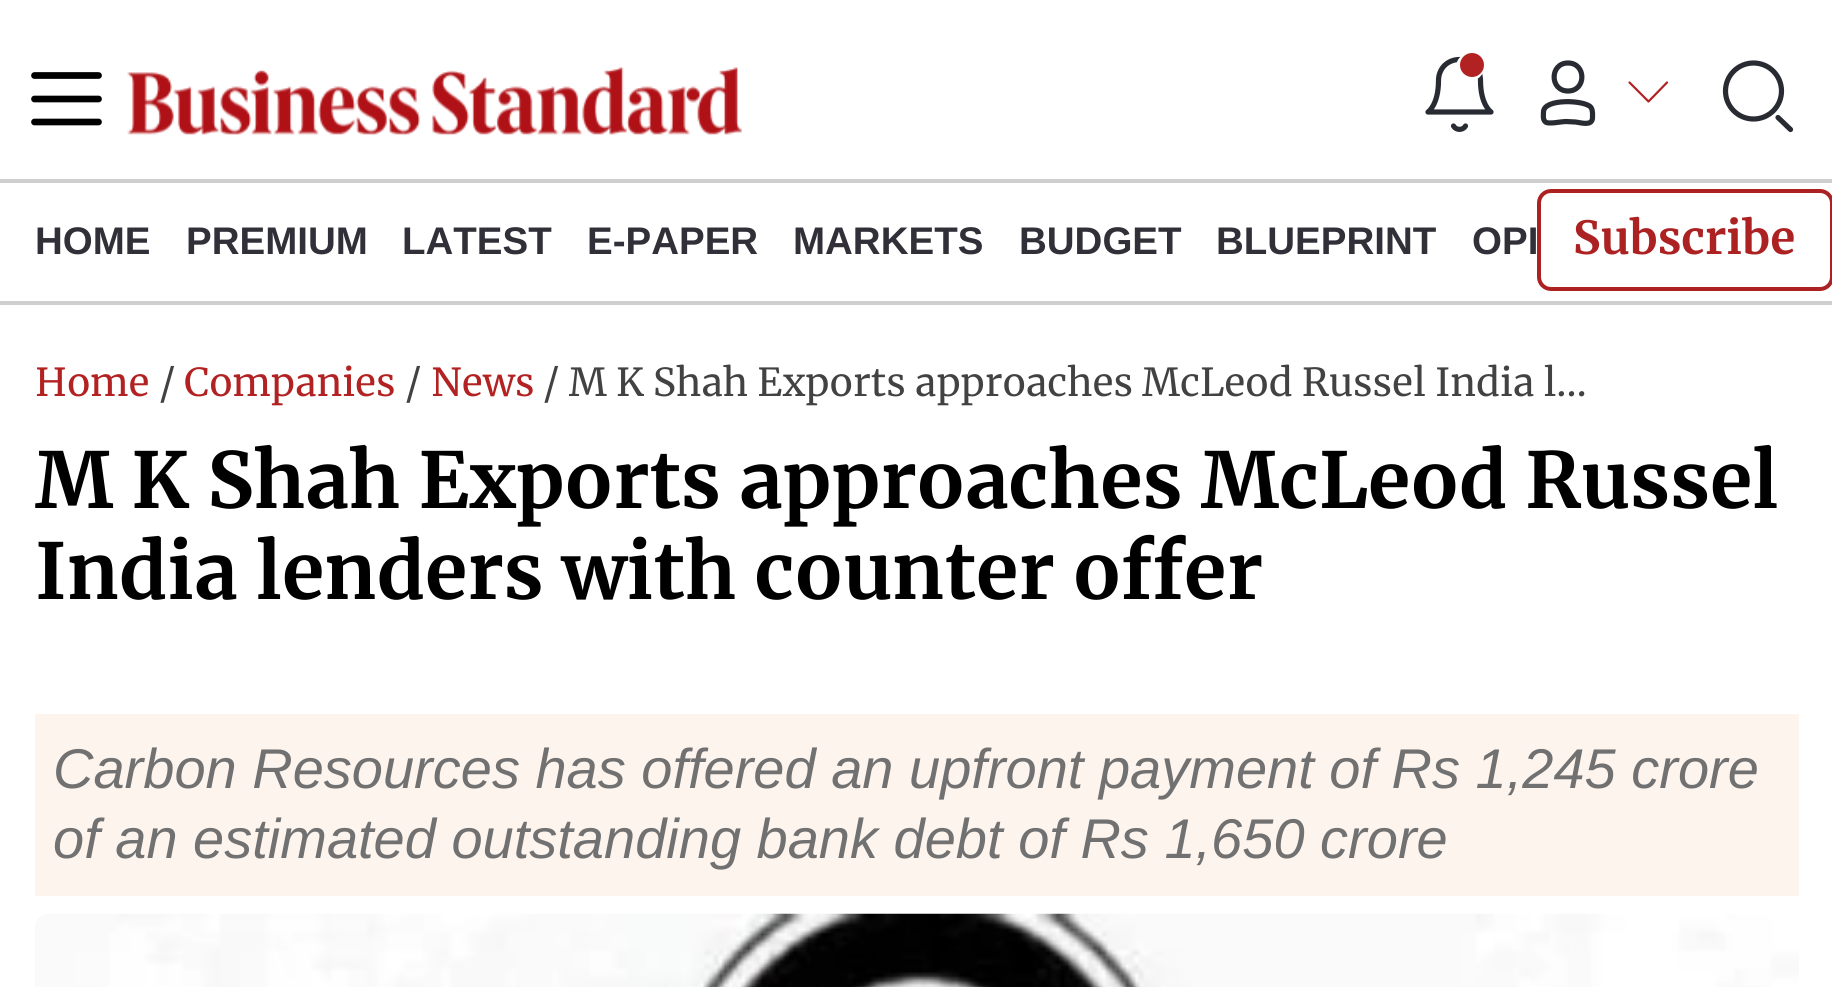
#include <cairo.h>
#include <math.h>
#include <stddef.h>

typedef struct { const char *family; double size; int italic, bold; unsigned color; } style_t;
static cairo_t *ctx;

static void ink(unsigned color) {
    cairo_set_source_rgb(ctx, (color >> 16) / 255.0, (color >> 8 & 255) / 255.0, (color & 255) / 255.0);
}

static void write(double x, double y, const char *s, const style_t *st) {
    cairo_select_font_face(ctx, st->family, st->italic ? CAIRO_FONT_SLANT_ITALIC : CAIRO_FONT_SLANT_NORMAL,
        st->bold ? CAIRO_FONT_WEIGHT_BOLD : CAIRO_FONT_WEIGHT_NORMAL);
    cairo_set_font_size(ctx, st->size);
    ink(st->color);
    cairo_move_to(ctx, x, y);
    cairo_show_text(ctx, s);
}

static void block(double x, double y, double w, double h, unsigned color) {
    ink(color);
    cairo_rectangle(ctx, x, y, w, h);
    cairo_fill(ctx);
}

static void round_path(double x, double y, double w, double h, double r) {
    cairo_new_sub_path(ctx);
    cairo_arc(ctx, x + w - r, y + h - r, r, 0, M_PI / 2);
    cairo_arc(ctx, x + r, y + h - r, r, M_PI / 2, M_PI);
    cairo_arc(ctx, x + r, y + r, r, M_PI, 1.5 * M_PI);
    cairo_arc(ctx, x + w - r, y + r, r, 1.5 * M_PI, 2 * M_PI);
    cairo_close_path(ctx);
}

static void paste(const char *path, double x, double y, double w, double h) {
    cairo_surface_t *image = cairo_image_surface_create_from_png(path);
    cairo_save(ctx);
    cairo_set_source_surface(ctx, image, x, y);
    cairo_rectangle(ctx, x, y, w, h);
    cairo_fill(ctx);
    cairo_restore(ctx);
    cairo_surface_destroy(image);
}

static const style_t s1 = {"Liberation Sans", 38.5, 0, 1, 0x313038};
static const style_t s2 = {"Merriweather", 45.5, 0, 1, 0xac2122};
static const style_t s3 = {"Merriweather", 38.5, 0, 0, 0xb22222};
static const style_t s4 = {"Merriweather", 38.5, 0, 0, 0x424242};
static const style_t s5 = {"Merriweather", 77, 0, 1, 0x000000};
static const style_t s6 = {"Liberation Sans", 56, 1, 0, 0x717171};

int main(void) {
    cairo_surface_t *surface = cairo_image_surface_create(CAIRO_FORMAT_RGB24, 1832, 987);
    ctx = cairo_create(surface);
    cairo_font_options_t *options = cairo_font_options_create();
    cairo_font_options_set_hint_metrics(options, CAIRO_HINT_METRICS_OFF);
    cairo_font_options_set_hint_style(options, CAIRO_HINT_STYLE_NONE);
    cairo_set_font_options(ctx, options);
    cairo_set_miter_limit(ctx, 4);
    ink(0xffffff);
    cairo_paint(ctx);
    cairo_new_path(ctx);
    cairo_move_to(ctx, 98.5, 75.5);
    cairo_line_to(ctx, 34.5, 75.5);
    ink(0x000000);
    cairo_set_line_width(ctx, 6.7);
    cairo_set_line_cap(ctx, CAIRO_LINE_CAP_ROUND);
    cairo_stroke(ctx);
    cairo_new_path(ctx);
    cairo_move_to(ctx, 98.5, 99);
    cairo_line_to(ctx, 34.5, 99);
    cairo_stroke(ctx);
    cairo_new_path(ctx);
    cairo_move_to(ctx, 98.5, 122);
    cairo_line_to(ctx, 34.5, 122);
    cairo_stroke(ctx);
    paste("pic1.png", 127, 67, 615, 68);
    cairo_new_path(ctx);
    cairo_move_to(ctx, 1480.5, 80.5);
    cairo_curve_to(ctx, 1480.5, 75, 1478.5, 69.5, 1474.5, 65.5);
    cairo_curve_to(ctx, 1470.5, 61.5, 1465, 59.5, 1459.5, 59.5);
    cairo_curve_to(ctx, 1454, 59.5, 1448.5, 61.5, 1444.5, 65.5);
    cairo_curve_to(ctx, 1440.5, 69.5, 1438.5, 75, 1438.5, 80.5);
    cairo_curve_to(ctx, 1438.5, 105, 1428, 112, 1428, 112);
    cairo_line_to(ctx, 1491, 112);
    cairo_curve_to(ctx, 1491, 112, 1480.5, 105, 1480.5, 80.5);
    cairo_close_path(ctx);
    ink(0x282b32);
    cairo_set_line_width(ctx, 5.2);
    cairo_set_line_join(ctx, CAIRO_LINE_JOIN_ROUND);
    cairo_stroke(ctx);
    ink(0xffffff);
    cairo_arc(ctx, 1470, 67, 14, 0, 2 * M_PI);
    cairo_fill(ctx);
    ink(0xb22222);
    cairo_arc(ctx, 1472, 65, 12, 0, 2 * M_PI);
    cairo_fill(ctx);
    cairo_new_path(ctx);
    cairo_move_to(ctx, 1465.5, 126);
    cairo_curve_to(ctx, 1463, 130.5, 1456, 130.5, 1453.5, 126);
    ink(0x282b32);
    cairo_stroke(ctx);
    cairo_new_path(ctx);
    cairo_move_to(ctx, 1568, 63);
    cairo_curve_to(ctx, 1549.5, 63, 1549.5, 91, 1568, 91);
    cairo_curve_to(ctx, 1586.5, 91, 1586.5, 63, 1568, 63);
    cairo_close_path(ctx);
    cairo_set_line_cap(ctx, CAIRO_LINE_CAP_BUTT);
    cairo_set_line_join(ctx, CAIRO_LINE_JOIN_MITER);
    cairo_stroke(ctx);
    cairo_new_path(ctx);
    cairo_move_to(ctx, 1543.5, 112);
    cairo_curve_to(ctx, 1543.5, 98, 1586, 100, 1591, 107.5);
    cairo_curve_to(ctx, 1593, 110.5, 1592.5, 115, 1592.5, 118);
    cairo_curve_to(ctx, 1592, 126.5, 1580.5, 122.5, 1575.5, 122);
    cairo_line_to(ctx, 1565.5, 121.5);
    cairo_curve_to(ctx, 1561.5, 121.5, 1548.5, 124.5, 1545.5, 122);
    cairo_curve_to(ctx, 1542.5, 119.5, 1543.5, 115, 1543.5, 112);
    cairo_close_path(ctx);
    cairo_stroke(ctx);
    cairo_new_path(ctx);
    cairo_move_to(ctx, 1629.5, 82.5);
    cairo_line_to(ctx, 1648.5, 101.5);
    cairo_line_to(ctx, 1667, 82.5);
    ink(0xb22222);
    cairo_set_line_width(ctx, 2.2);
    cairo_set_line_cap(ctx, CAIRO_LINE_CAP_ROUND);
    cairo_set_line_join(ctx, CAIRO_LINE_JOIN_ROUND);
    cairo_stroke(ctx);
    cairo_arc(ctx, 1753.5, 91, 28, 0, 2 * M_PI);
    ink(0x282b32);
    cairo_set_line_width(ctx, 5.2);
    cairo_set_line_cap(ctx, CAIRO_LINE_CAP_BUTT);
    cairo_set_line_join(ctx, CAIRO_LINE_JOIN_MITER);
    cairo_stroke(ctx);
    cairo_new_path(ctx);
    cairo_move_to(ctx, 1778, 117.5);
    cairo_line_to(ctx, 1790.5, 129.5);
    cairo_set_line_cap(ctx, CAIRO_LINE_CAP_ROUND);
    cairo_set_line_join(ctx, CAIRO_LINE_JOIN_ROUND);
    cairo_stroke(ctx);
    block(0, 179, 1832, 4, 0xcfcfcf);
    block(0, 301, 1832, 4, 0xcfcfcf);
    write(35, 254, "HOME", &s1);
    write(186, 254, "PREMIUM", &s1);
    write(402, 254, "LATEST", &s1);
    write(587, 254, "E-PAPER", &s1);
    write(793, 254, "MARKETS", &s1);
    write(1019, 254, "BUDGET", &s1);
    write(1216, 254, "BLUEPRINT", &s1);
    write(1472, 254, "OPI", &s1);
    round_path(1539, 191, 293, 98, 12);
    ink(0xac2122);
    cairo_set_line_width(ctx, 4);
    cairo_set_line_cap(ctx, CAIRO_LINE_CAP_BUTT);
    cairo_set_line_join(ctx, CAIRO_LINE_JOIN_MITER);
    cairo_stroke(ctx);
    write(1573, 254, "Subscribe", &s2);
    write(35, 396, "Home", &s3);
    write(159, 396, "/", &s4);
    write(184, 396, "Companies", &s3);
    write(405, 396, "/", &s4);
    write(431, 396, "News", &s3);
    write(543, 396, "/ M K Shah Exports approaches McLeod Russel India l…", &s4);
    write(35, 508, "M K Shah Exports approaches McLeod Russel", &s5);
    write(35, 599, "India lenders with counter offer", &s5);
    block(35, 714, 1764, 182, 0xfdf4ee);
    write(53, 788, "Carbon Resources has offered an upfront payment of Rs 1,245 crore", &s6);
    write(53, 858, "of an estimated outstanding bank debt of Rs 1,650 crore", &s6);
    paste("pic2.png", 35, 913, 1764, 74);
    cairo_surface_write_to_png(surface, "screenshot.png");
    cairo_font_options_destroy(options);
    cairo_destroy(ctx);
    cairo_surface_destroy(surface);
    return 0;
}
